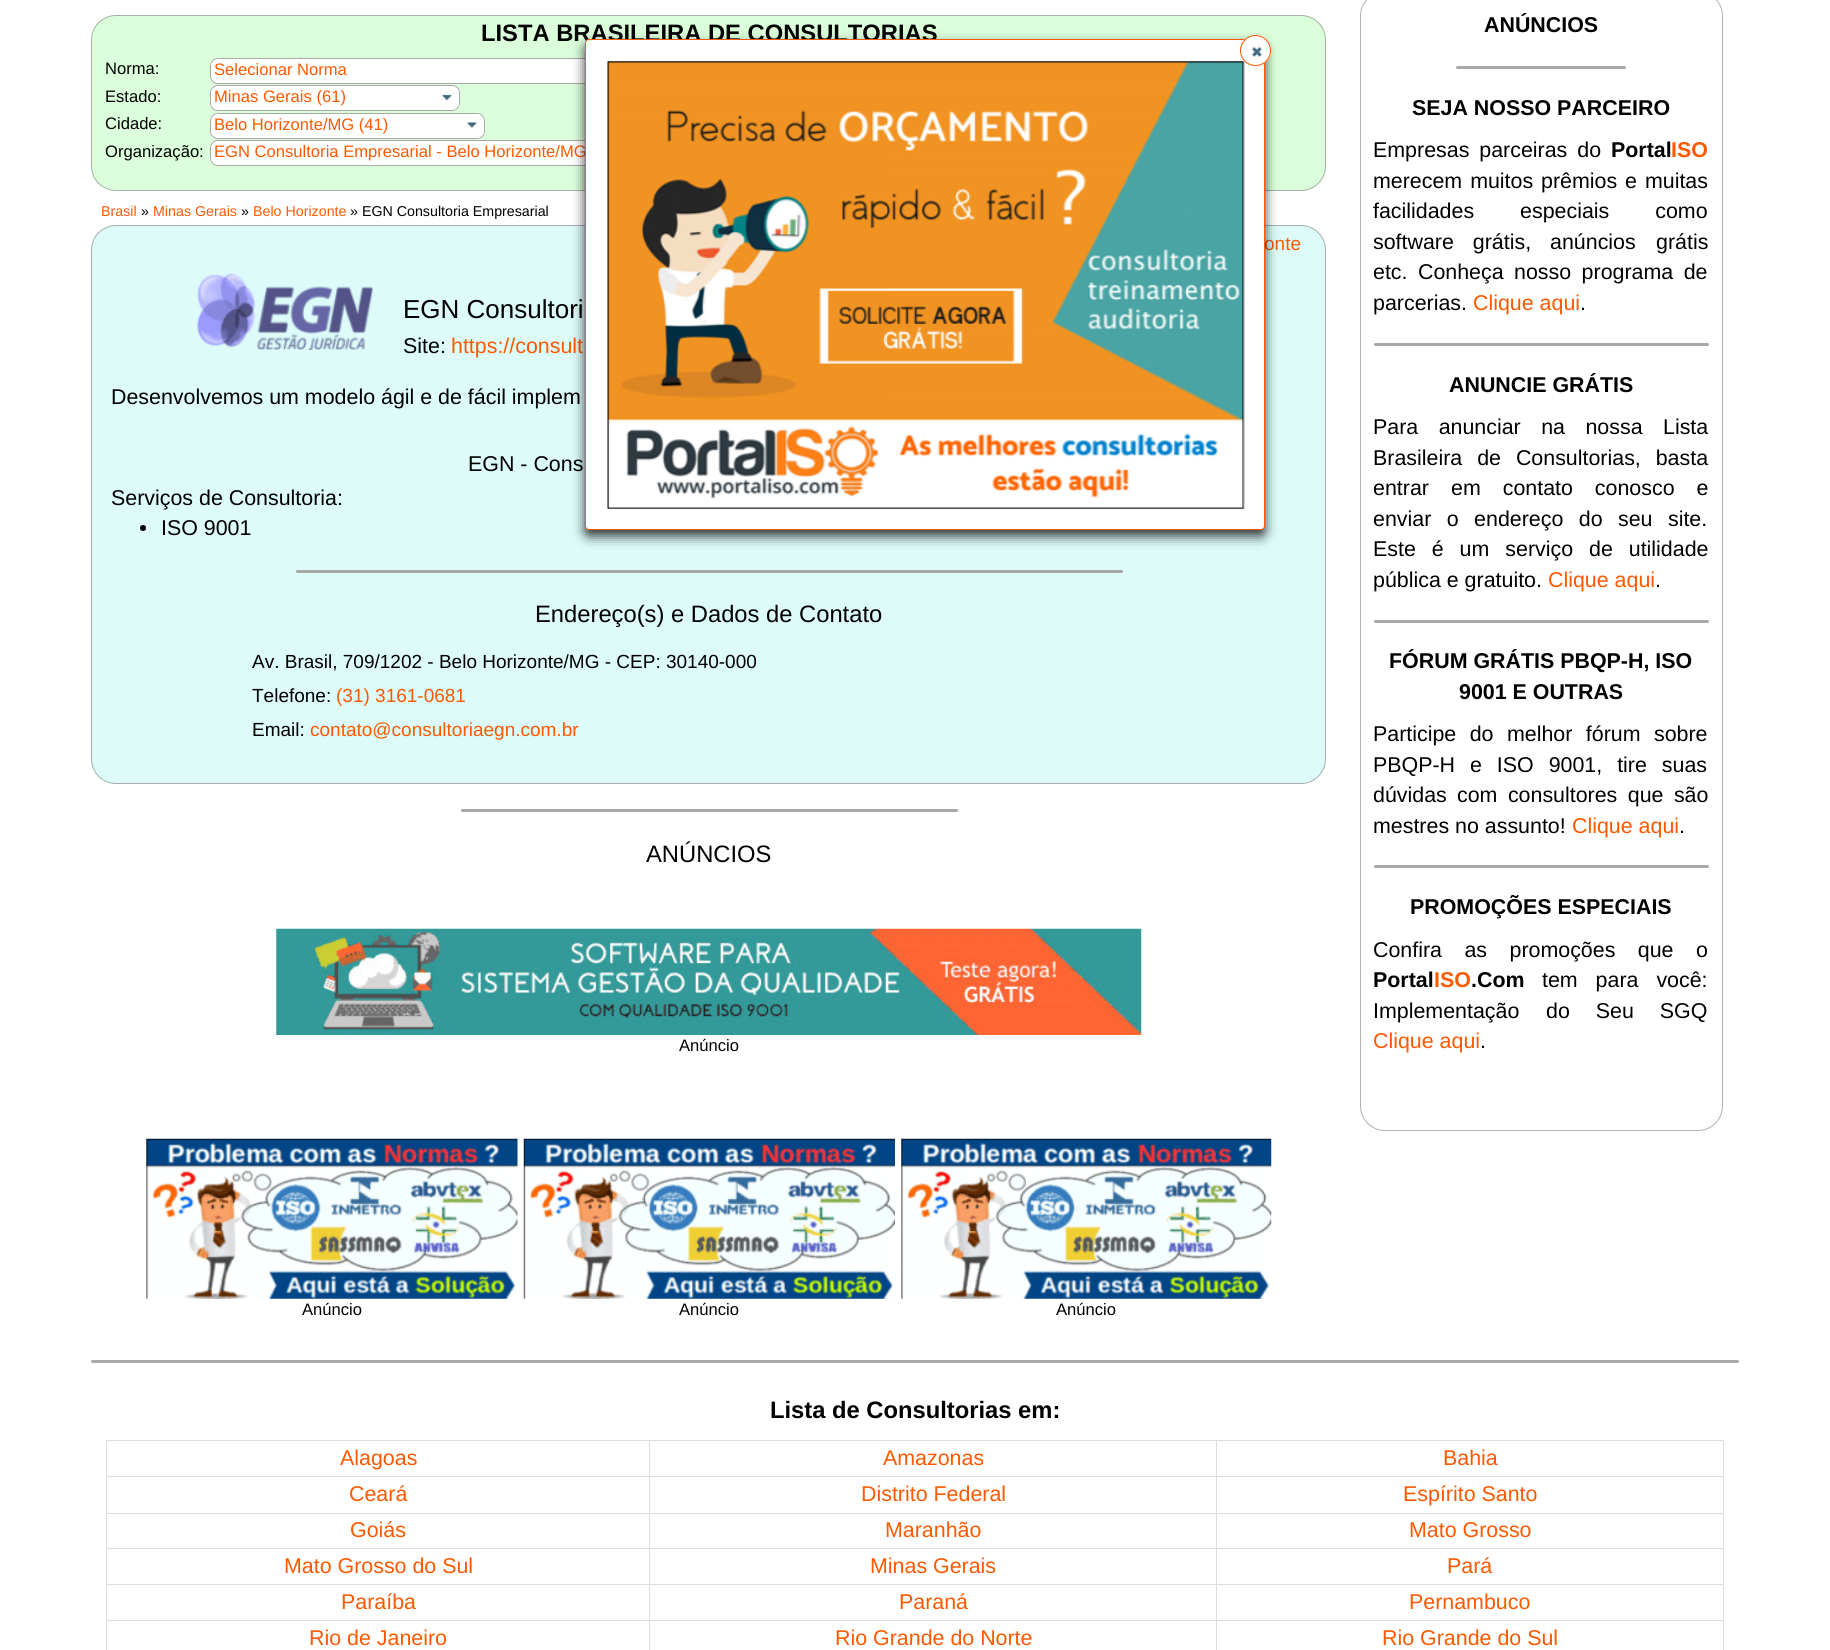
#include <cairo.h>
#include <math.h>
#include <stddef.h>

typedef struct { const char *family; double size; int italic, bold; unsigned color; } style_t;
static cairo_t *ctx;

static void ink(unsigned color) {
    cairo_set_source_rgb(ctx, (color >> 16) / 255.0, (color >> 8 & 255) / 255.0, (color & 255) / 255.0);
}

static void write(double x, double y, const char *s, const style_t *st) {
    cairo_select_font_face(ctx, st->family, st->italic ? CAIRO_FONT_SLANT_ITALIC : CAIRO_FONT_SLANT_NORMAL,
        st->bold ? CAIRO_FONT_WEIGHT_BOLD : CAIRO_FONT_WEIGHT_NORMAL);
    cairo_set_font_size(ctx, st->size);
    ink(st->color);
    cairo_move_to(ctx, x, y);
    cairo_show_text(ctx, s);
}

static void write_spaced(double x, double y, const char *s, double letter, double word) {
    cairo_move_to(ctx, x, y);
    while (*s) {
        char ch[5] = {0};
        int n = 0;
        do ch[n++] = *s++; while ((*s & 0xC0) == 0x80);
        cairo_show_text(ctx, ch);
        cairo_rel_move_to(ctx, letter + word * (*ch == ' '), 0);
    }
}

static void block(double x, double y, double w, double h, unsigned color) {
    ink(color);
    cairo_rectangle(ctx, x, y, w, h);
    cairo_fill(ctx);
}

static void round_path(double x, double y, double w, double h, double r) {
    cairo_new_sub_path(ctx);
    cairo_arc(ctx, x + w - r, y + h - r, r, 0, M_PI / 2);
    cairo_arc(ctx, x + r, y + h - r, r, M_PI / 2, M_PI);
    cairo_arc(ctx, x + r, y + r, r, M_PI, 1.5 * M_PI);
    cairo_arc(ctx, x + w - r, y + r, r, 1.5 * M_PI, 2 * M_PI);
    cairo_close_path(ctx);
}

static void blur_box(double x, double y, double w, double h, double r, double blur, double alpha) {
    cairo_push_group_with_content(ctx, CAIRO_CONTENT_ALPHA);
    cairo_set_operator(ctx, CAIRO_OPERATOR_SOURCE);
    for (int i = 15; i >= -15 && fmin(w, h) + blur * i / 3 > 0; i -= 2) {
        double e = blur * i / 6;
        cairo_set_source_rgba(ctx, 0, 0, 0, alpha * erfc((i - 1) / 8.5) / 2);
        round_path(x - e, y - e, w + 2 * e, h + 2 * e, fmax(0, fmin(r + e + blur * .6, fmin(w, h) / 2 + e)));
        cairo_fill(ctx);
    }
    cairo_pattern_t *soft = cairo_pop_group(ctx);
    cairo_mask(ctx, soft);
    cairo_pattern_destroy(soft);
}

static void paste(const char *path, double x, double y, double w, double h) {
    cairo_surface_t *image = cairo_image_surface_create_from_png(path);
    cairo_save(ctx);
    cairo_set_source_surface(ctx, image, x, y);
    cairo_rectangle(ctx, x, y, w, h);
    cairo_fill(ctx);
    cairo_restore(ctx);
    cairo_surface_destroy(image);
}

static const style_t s1 = {"Liberation Sans", 23.75, 0, 1, 0x000000};
static const style_t s2 = {"Liberation Sans", 16.6, 0, 0, 0x000000};
static const style_t s3 = {"Liberation Sans", 16.6, 0, 0, 0xfc5900};
static const style_t s4 = {"Liberation Sans", 21.4, 0, 1, 0x000000};
static const style_t s5 = {"Liberation Sans", 21.4, 0, 1, 0xfc5900};
static const style_t s6 = {"Liberation Sans", 21.4, 0, 0, 0x000000};
static const style_t s7 = {"Liberation Sans", 21.4, 0, 0, 0xfc5900};
static const style_t s8 = {"Liberation Sans", 14.25, 0, 0, 0xfc5900};
static const style_t s9 = {"Liberation Sans", 14.25, 0, 0, 0x000000};
static const style_t s10 = {"Liberation Sans", 19, 0, 0, 0xfc5900};
static const style_t s11 = {"Liberation Sans", 26, 0, 0, 0x000000};
static const style_t s12 = {"Liberation Sans", 23.75, 0, 0, 0x000000};
static const style_t s13 = {"Liberation Sans", 19, 0, 0, 0x000000};

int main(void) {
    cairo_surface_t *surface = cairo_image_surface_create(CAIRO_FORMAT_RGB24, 1830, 1650);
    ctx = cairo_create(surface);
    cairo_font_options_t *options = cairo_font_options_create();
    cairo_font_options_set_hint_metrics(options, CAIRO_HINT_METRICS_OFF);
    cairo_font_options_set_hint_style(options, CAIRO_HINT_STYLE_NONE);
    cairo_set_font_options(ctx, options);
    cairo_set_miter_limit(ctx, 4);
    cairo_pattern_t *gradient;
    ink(0xffffff);
    cairo_paint(ctx);
    ink(0xdbffdb);
    round_path(91, 15, 1235, 176, 25);
    cairo_fill(ctx);
    round_path(91.5, 15.5, 1234, 175, 24.5);
    cairo_set_source_rgba(ctx, 0.502, 0.502, 0.502, 0.6);
    cairo_set_line_width(ctx, 1);
    cairo_stroke(ctx);
    write(481, 41, "LISTA BRASILEIRA DE CONSULTORIAS", &s1);
    write(105, 74, "Norma:", &s2);
    ink(0xffffff);
    round_path(210, 58, 875, 26, 8);
    cairo_fill(ctx);
    cairo_save(ctx);
    round_path(210, 58, 875, 26, 8);
    cairo_clip(ctx);
    gradient = cairo_pattern_create_linear(211, 59, 211, 83);
    cairo_pattern_add_color_stop_rgba(gradient, 0, 1, 1, 1, 0.8);
    cairo_pattern_add_color_stop_rgba(gradient, 1, 1, 1, 1, 0);
    cairo_set_source(ctx, gradient);
    cairo_pattern_destroy(gradient);
    cairo_rectangle(ctx, 210, 59, 9, 23);
    cairo_fill(ctx);
    cairo_restore(ctx);
    round_path(210.5, 58.5, 874, 25, 7.5);
    ink(0xa8a8a8);
    cairo_stroke(ctx);
    ink(0xffffff);
    round_path(211, 59, 873, 24, 8);
    cairo_fill(ctx);
    write(214, 75, "Selecionar Norma", &s3);
    write(105, 102, "Estado:", &s2);
    ink(0xffffff);
    round_path(210, 85, 250, 26, 8);
    cairo_fill(ctx);
    cairo_save(ctx);
    round_path(210, 85, 250, 26, 8);
    cairo_clip(ctx);
    gradient = cairo_pattern_create_linear(211, 86, 211, 110);
    cairo_pattern_add_color_stop_rgba(gradient, 0, 1, 1, 1, 0.8);
    cairo_pattern_add_color_stop_rgba(gradient, 1, 1, 1, 1, 0);
    cairo_set_source(ctx, gradient);
    cairo_pattern_destroy(gradient);
    cairo_rectangle(ctx, 210, 86, 250, 23);
    cairo_fill(ctx);
    cairo_restore(ctx);
    round_path(210.5, 85.5, 249, 25, 7.5);
    ink(0xa8a8a8);
    cairo_stroke(ctx);
    ink(0xffffff);
    round_path(211, 86, 248, 24, 8);
    cairo_fill(ctx);
    write(214, 102, "Minas Gerais (61)", &s3);
    ink(0xffffff);
    round_path(433, 86, 26, 24, 8);
    cairo_fill(ctx);
    gradient = cairo_pattern_create_linear(433, 86, 433, 110);
    cairo_pattern_add_color_stop_rgba(gradient, 0, 1, 1, 1, 0.8);
    cairo_pattern_add_color_stop_rgba(gradient, 1, 1, 1, 1, 0);
    cairo_set_source(ctx, gradient);
    cairo_pattern_destroy(gradient);
    round_path(433, 86, 26, 24, 8);
    cairo_fill(ctx);
    ink(0xffffff);
    cairo_new_path(ctx);
    cairo_move_to(ctx, 440, 88);
    cairo_curve_to(ctx, 445.5, 88, 459, 86, 459, 95);
    cairo_curve_to(ctx, 459, 91, 457, 87, 452.5, 86);
    cairo_line_to(ctx, 446, 86);
    cairo_curve_to(ctx, 441, 86, 436, 85.5, 433.5, 91);
    cairo_curve_to(ctx, 435, 89, 437.5, 88, 440, 88);
    cairo_close_path(ctx);
    cairo_fill(ctx);
    paste("pic1.png", 442, 94, 10, 7);
    write(105, 129, "Cidade:", &s2);
    ink(0xffffff);
    round_path(210, 113, 275, 26, 8);
    cairo_fill(ctx);
    cairo_save(ctx);
    round_path(210, 113, 275, 26, 8);
    cairo_clip(ctx);
    gradient = cairo_pattern_create_linear(211, 114, 211, 138);
    cairo_pattern_add_color_stop_rgba(gradient, 0, 1, 1, 1, 0.8);
    cairo_pattern_add_color_stop_rgba(gradient, 1, 1, 1, 1, 0);
    cairo_set_source(ctx, gradient);
    cairo_pattern_destroy(gradient);
    cairo_rectangle(ctx, 210, 114, 275, 23);
    cairo_fill(ctx);
    cairo_restore(ctx);
    round_path(210.5, 113.5, 274, 25, 7.5);
    ink(0xa8a8a8);
    cairo_stroke(ctx);
    ink(0xffffff);
    round_path(211, 114, 273, 24, 8);
    cairo_fill(ctx);
    write(214, 130, "Belo Horizonte/MG (41)", &s3);
    ink(0xffffff);
    round_path(458, 114, 26, 24, 8);
    cairo_fill(ctx);
    gradient = cairo_pattern_create_linear(458, 114, 458, 138);
    cairo_pattern_add_color_stop_rgba(gradient, 0, 1, 1, 1, 0.8);
    cairo_pattern_add_color_stop_rgba(gradient, 1, 1, 1, 1, 0);
    cairo_set_source(ctx, gradient);
    cairo_pattern_destroy(gradient);
    round_path(458, 114, 26, 24, 8);
    cairo_fill(ctx);
    ink(0xffffff);
    cairo_new_path(ctx);
    cairo_move_to(ctx, 465, 115);
    cairo_curve_to(ctx, 470.5, 115, 484, 113, 484, 122);
    cairo_curve_to(ctx, 484, 117.5, 480.5, 114, 476, 114);
    cairo_line_to(ctx, 466, 114);
    cairo_curve_to(ctx, 461.5, 114, 458, 117.5, 458, 122);
    cairo_curve_to(ctx, 458, 118, 461, 115, 465, 115);
    cairo_close_path(ctx);
    cairo_fill(ctx);
    paste("pic2.png", 467, 122, 10, 6);
    write(105, 157, "Organização:", &s2);
    ink(0xffffff);
    round_path(210, 140, 625, 26, 8);
    cairo_fill(ctx);
    cairo_save(ctx);
    round_path(210, 140, 625, 26, 8);
    cairo_clip(ctx);
    gradient = cairo_pattern_create_linear(211, 141, 211, 165);
    cairo_pattern_add_color_stop_rgba(gradient, 0, 1, 1, 1, 0.8);
    cairo_pattern_add_color_stop_rgba(gradient, 1, 1, 1, 1, 0);
    cairo_set_source(ctx, gradient);
    cairo_pattern_destroy(gradient);
    cairo_rectangle(ctx, 210, 141, 9, 23);
    cairo_fill(ctx);
    cairo_restore(ctx);
    round_path(210.5, 140.5, 624, 25, 7.5);
    ink(0xa8a8a8);
    cairo_stroke(ctx);
    ink(0xffffff);
    round_path(211, 141, 623, 24, 8);
    cairo_fill(ctx);
    write(214, 157, "EGN Consultoria Empresarial - Belo Horizonte/MG", &s3);
    round_path(1360.5, -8.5, 362, 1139, 24.5);
    ink(0xb3b3b3);
    cairo_stroke(ctx);
    write(1484, 32, "ANÚNCIOS", &s4);
    ink(0xa8a8a8);
    round_path(1456, 66, 170, 3, 1.5);
    cairo_fill(ctx);
    write(1412, 115, "SEJA NOSSO PARCEIRO", &s4);
    cairo_select_font_face(ctx, "Liberation Sans", CAIRO_FONT_SLANT_NORMAL, CAIRO_FONT_WEIGHT_NORMAL);
    write_spaced(1373, 157, "Empresas parceiras do", 0, 4);
    write(1611, 157, "Portal", &s4);
    write(1671, 157, "ISO", &s5);
    cairo_select_font_face(ctx, "Liberation Sans", CAIRO_FONT_SLANT_NORMAL, CAIRO_FONT_WEIGHT_NORMAL);
    ink(0x000000);
    write_spaced(1373, 188, "merecem muitos", 0, 2);
    write_spaced(1541, 188, "prêmios e muitas", 0, 2);
    write_spaced(1373, 218, "facilidades especiais como", 0, 40);
    write_spaced(1373, 249, "software grátis, anúncios", 0, 13);
    write(1656, 249, "grátis", &s6);
    write_spaced(1373, 279, "etc. Conheça nosso programa de", 0, 4.5);
    write(1373, 310, "parcerias.", &s6);
    write(1473, 310, "Clique aqui", &s7);
    write(1580, 310, ".", &s6);
    ink(0xa8a8a8);
    round_path(1374, 343, 335, 3, 1.5);
    cairo_fill(ctx);
    write(1449, 392, "ANUNCIE GRÁTIS", &s4);
    cairo_select_font_face(ctx, "Liberation Sans", CAIRO_FONT_SLANT_NORMAL, CAIRO_FONT_WEIGHT_NORMAL);
    write_spaced(1373, 434, "Para anunciar na nossa Lista", 0, 14.5);
    write_spaced(1373, 465, "Brasileira de Consultorias, basta", 0, 9);
    write(1373, 495, "entrar", &s6);
    write_spaced(1451, 495, "em contato conosco e", 0, 16);
    write_spaced(1373, 526, "enviar o endereço do seu site.", 0, 9.5);
    write_spaced(1373, 556, "Este é um serviço", 0, 10);
    write_spaced(1589, 556, "de utilidade", 0, 10);
    write(1373, 587, "pública e gratuito.", &s6);
    write(1548, 587, "Clique aqui", &s7);
    write(1655, 587, ".", &s6);
    ink(0xa8a8a8);
    round_path(1374, 620, 335, 3, 1.5);
    cairo_fill(ctx);
    write(1389, 668, "FÓRUM GRÁTIS PBQP-H, ISO", &s4);
    write(1459, 699, "9001 E OUTRAS", &s4);
    cairo_select_font_face(ctx, "Liberation Sans", CAIRO_FONT_SLANT_NORMAL, CAIRO_FONT_WEIGHT_NORMAL);
    write_spaced(1373, 741, "Participe do melhor fórum sobre", 0, 7.5);
    write_spaced(1373, 772, "PBQP-H e ISO 9001, tire suas", 0, 9);
    write(1373, 802, "dúvidas", &s6);
    write_spaced(1457, 802, "com consultores que são", 0, 4.5);
    write(1373, 833, "mestres no assunto!", &s6);
    write(1572, 833, "Clique aqui", &s7);
    write(1679, 833, ".", &s6);
    ink(0xa8a8a8);
    round_path(1374, 865, 335, 3, 1.5);
    cairo_fill(ctx);
    write(1410, 914, "PROMOÇÕES ESPECIAIS", &s4);
    cairo_select_font_face(ctx, "Liberation Sans", CAIRO_FONT_SLANT_NORMAL, CAIRO_FONT_WEIGHT_NORMAL);
    write_spaced(1373, 957, "Confira as promoções que o", 0, 16.5);
    write(1373, 987, "Portal", &s4);
    write(1434, 987, "ISO", &s5);
    write(1471, 987, ".Com", &s4);
    cairo_select_font_face(ctx, "Liberation Sans", CAIRO_FONT_SLANT_NORMAL, CAIRO_FONT_WEIGHT_NORMAL);
    write_spaced(1542, 987, "tem para você:", 0, 12);
    write(1373, 1018, "Implementação", &s6);
    write_spaced(1546, 1018, "do Seu SGQ", 0, 20);
    write(1373, 1048, "Clique aqui", &s7);
    write(1480, 1048, ".", &s6);
    write(101, 216, "Brasil", &s8);
    write(141, 216, "»", &s9);
    write(153, 216, "Minas Gerais", &s8);
    write(241, 216, "»", &s9);
    write(253, 216, "Belo Horizonte", &s8);
    write(350, 216, "» EGN Consultoria Empresarial", &s9);
    ink(0xdcfbf9);
    round_path(91, 225, 1235, 559, 25);
    cairo_fill(ctx);
    round_path(91.5, 225.5, 1234, 558, 24.5);
    cairo_set_source_rgba(ctx, 0.502, 0.502, 0.502, 0.6);
    cairo_stroke(ctx);
    write(1264, 250, "onte", &s10);
    paste("pic3.png", 197, 273, 176, 77);
    write(403, 318, "EGN Consultori", &s11);
    write(403, 353, "Site:", &s6);
    write(451, 353, "https://consult", &s7);
    write(111, 404, "Desenvolvemos um modelo ágil e de fácil implem", &s6);
    write(468, 471, "EGN - Cons", &s6);
    write(111, 505, "Serviços de Consultoria:", &s6);
    cairo_new_path(ctx);
    cairo_arc(ctx, 143, 528, 3, 0, 2 * M_PI);
    cairo_fill(ctx);
    write(161, 535, "ISO 9001", &s6);
    ink(0xa8a8a8);
    round_path(296, 570, 827, 3, 1.5);
    cairo_fill(ctx);
    write(535, 622, "Endereço(s) e Dados de Contato", &s12);
    write(252, 668, "Av. Brasil, 709/1202 - Belo Horizonte/MG - CEP: 30140-000", &s13);
    write(252, 702, "Telefone:", &s13);
    write(336, 702, "(31) 3161-0681", &s10);
    write(252, 736, "Email:", &s13);
    write(310, 736, "contato@consultoriaegn.com.br", &s10);
    ink(0xa8a8a8);
    round_path(461, 809, 497, 3, 1.5);
    cairo_fill(ctx);
    write(646, 862, "ANÚNCIOS", &s12);
    paste("pic4.png", 276, 928, 866, 107);
    write(679, 1051, "Anúncio", &s2);
    paste("pic5.png", 146, 1138, 372, 161);
    write(302, 1315, "Anúncio", &s2);
    paste("pic6.png", 523, 1138, 372, 161);
    write(679, 1315, "Anúncio", &s2);
    paste("pic7.png", 901, 1138, 371, 161);
    write(1056, 1315, "Anúncio", &s2);
    ink(0x000000);
    blur_box(585, 45, 680, 491, 4, 6, 0.8);
    ink(0xffffff);
    round_path(585.5, 39.5, 679, 490, 3.5);
    cairo_fill_preserve(ctx);
    ink(0xfc5900);
    cairo_stroke(ctx);
    paste("pic9.png", 607, 61, 638, 449);
    ink(0xffffff);
    cairo_arc(ctx, 1255.5, 50.5, 15.5, 0, 2 * M_PI);
    cairo_fill(ctx);
    cairo_save(ctx);
    round_path(1240, 35, 31, 31, 15.5);
    cairo_clip(ctx);
    gradient = cairo_pattern_create_linear(1241, 36, 1241, 65);
    cairo_pattern_add_color_stop_rgba(gradient, 0, 1, 1, 1, 0.8);
    cairo_pattern_add_color_stop_rgba(gradient, 1, 1, 1, 1, 0);
    cairo_set_source(ctx, gradient);
    cairo_pattern_destroy(gradient);
    cairo_rectangle(ctx, 1240, 36, 31, 28);
    cairo_fill(ctx);
    cairo_restore(ctx);
    cairo_arc(ctx, 1255.5, 50.5, 15, 0, 2 * M_PI);
    ink(0xfc5900);
    cairo_stroke(ctx);
    paste("pic8.png", 1252, 47, 10, 10);
    ink(0xa8a8a8);
    round_path(91, 1360, 1648, 3, 1.5);
    cairo_fill(ctx);
    write(770, 1418, "Lista de Consultorias em:", &s1);
    block(1216, 1440, 508, 1, 0xdddddd);
    block(1216, 1476, 508, 1, 0xdddddd);
    block(1216, 1513, 508, 1, 0xdddddd);
    block(1216, 1548, 508, 1, 0xdddddd);
    block(1216, 1584, 508, 1, 0xdddddd);
    block(1216, 1620, 508, 1, 0xdddddd);
    block(1216, 1620, 1, 30, 0xdddddd);
    block(649, 1620, 569, 1, 0xdddddd);
    block(1216, 1584, 1, 37, 0xdddddd);
    block(649, 1584, 569, 1, 0xdddddd);
    block(1216, 1548, 1, 37, 0xdddddd);
    block(649, 1548, 569, 1, 0xdddddd);
    block(1216, 1513, 1, 36, 0xdddddd);
    block(649, 1513, 569, 1, 0xdddddd);
    block(1216, 1476, 1, 38, 0xdddddd);
    block(649, 1476, 569, 1, 0xdddddd);
    block(1216, 1440, 1, 38, 0xdddddd);
    block(649, 1440, 569, 1, 0xdddddd);
    block(649, 1620, 1, 30, 0xdddddd);
    block(106, 1620, 544, 1, 0xdddddd);
    block(649, 1584, 1, 37, 0xdddddd);
    block(106, 1584, 544, 1, 0xdddddd);
    block(649, 1548, 1, 37, 0xdddddd);
    block(106, 1548, 544, 1, 0xdddddd);
    block(649, 1513, 1, 36, 0xdddddd);
    block(106, 1513, 544, 1, 0xdddddd);
    block(649, 1476, 1, 38, 0xdddddd);
    block(106, 1476, 544, 1, 0xdddddd);
    block(649, 1440, 1, 38, 0xdddddd);
    block(106, 1440, 544, 1, 0xdddddd);
    block(106, 1620, 1, 30, 0xdddddd);
    block(106, 1584, 1, 37, 0xdddddd);
    block(106, 1548, 1, 37, 0xdddddd);
    block(106, 1513, 1, 36, 0xdddddd);
    block(106, 1476, 1, 38, 0xdddddd);
    block(106, 1440, 1, 38, 0xdddddd);
    write(340, 1465, "Alagoas", &s7);
    write(883, 1465, "Amazonas", &s7);
    block(1723, 1620, 1, 30, 0xdddddd);
    block(1723, 1584, 1, 37, 0xdddddd);
    block(1723, 1548, 1, 37, 0xdddddd);
    block(1723, 1513, 1, 36, 0xdddddd);
    block(1723, 1476, 1, 38, 0xdddddd);
    block(1723, 1440, 1, 38, 0xdddddd);
    write(1443, 1465, "Bahia", &s7);
    write(349, 1501, "Ceará", &s7);
    write(861, 1501, "Distrito Federal", &s7);
    write(1403, 1501, "Espírito Santo", &s7);
    write(350, 1537, "Goiás", &s7);
    write(885, 1537, "Maranhão", &s7);
    write(1409, 1537, "Mato Grosso", &s7);
    write(284, 1573, "Mato Grosso do Sul", &s7);
    write(870, 1573, "Minas Gerais", &s7);
    write(1447, 1573, "Pará", &s7);
    write(341, 1609, "Paraíba", &s7);
    write(899, 1609, "Paraná", &s7);
    write(1409, 1609, "Pernambuco", &s7);
    write(309, 1645, "Rio de Janeiro", &s7);
    write(835, 1645, "Rio Grande do Norte", &s7);
    write(1382, 1645, "Rio Grande do Sul", &s7);
    cairo_surface_write_to_png(surface, "screenshot.png");
    cairo_font_options_destroy(options);
    cairo_destroy(ctx);
    cairo_surface_destroy(surface);
    return 0;
}
